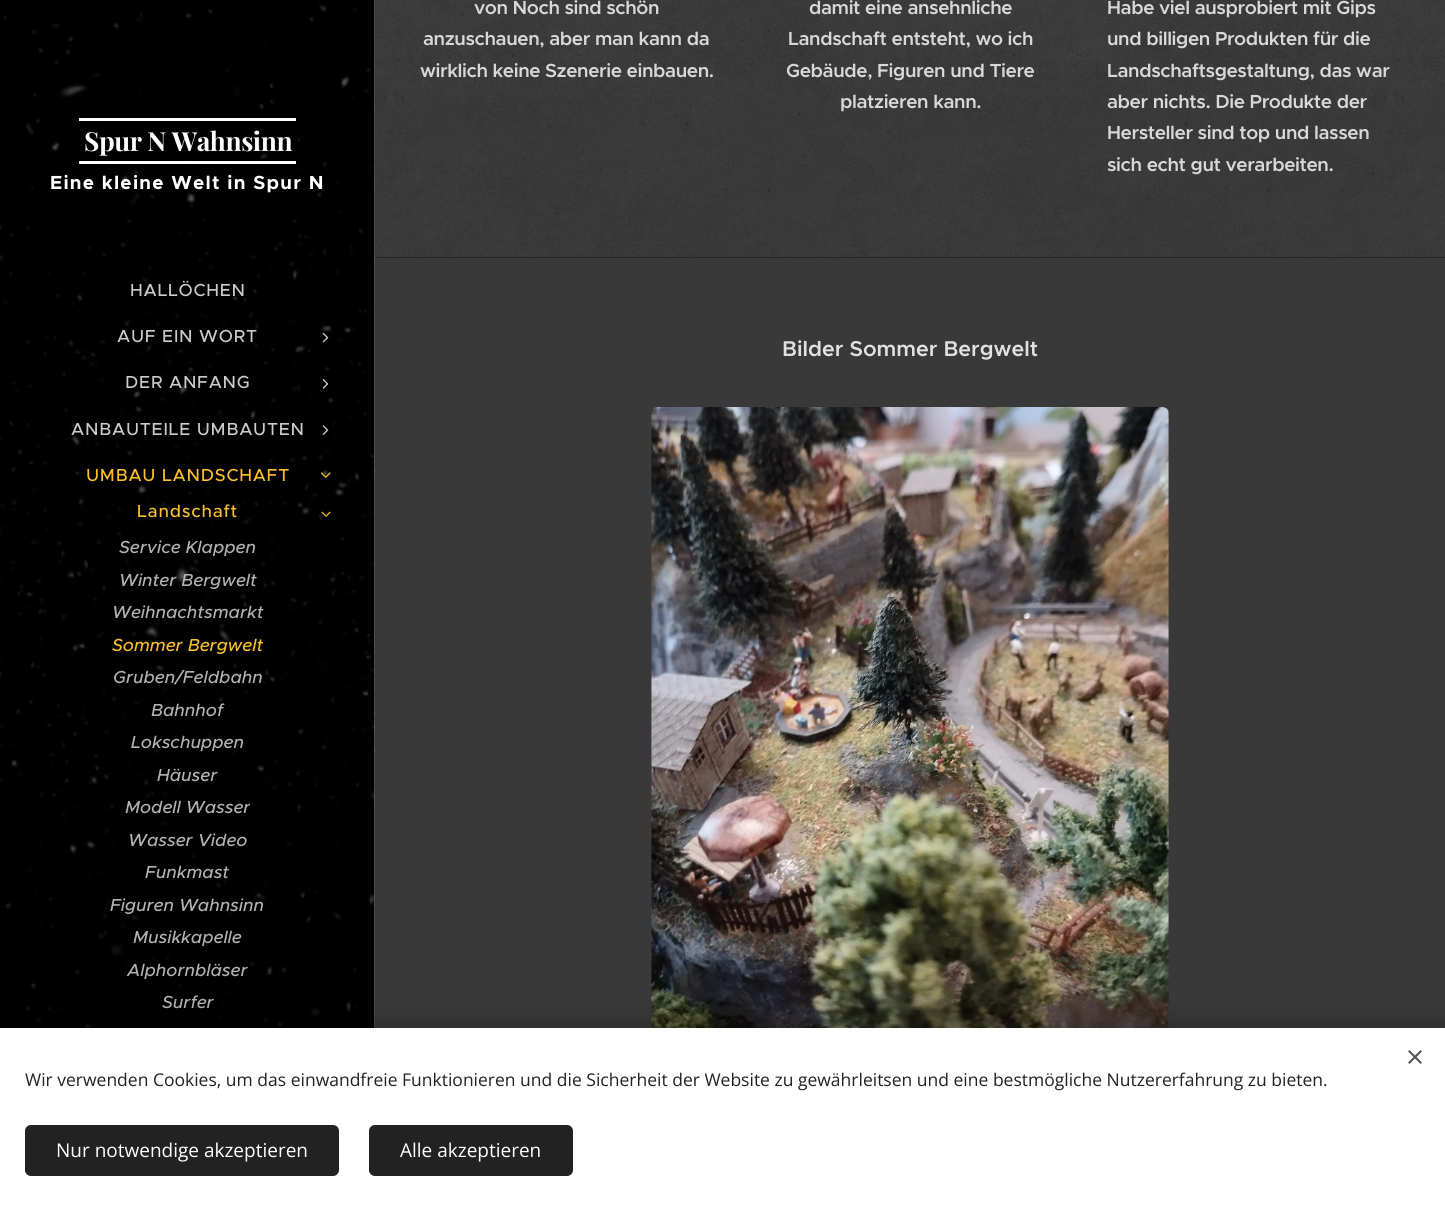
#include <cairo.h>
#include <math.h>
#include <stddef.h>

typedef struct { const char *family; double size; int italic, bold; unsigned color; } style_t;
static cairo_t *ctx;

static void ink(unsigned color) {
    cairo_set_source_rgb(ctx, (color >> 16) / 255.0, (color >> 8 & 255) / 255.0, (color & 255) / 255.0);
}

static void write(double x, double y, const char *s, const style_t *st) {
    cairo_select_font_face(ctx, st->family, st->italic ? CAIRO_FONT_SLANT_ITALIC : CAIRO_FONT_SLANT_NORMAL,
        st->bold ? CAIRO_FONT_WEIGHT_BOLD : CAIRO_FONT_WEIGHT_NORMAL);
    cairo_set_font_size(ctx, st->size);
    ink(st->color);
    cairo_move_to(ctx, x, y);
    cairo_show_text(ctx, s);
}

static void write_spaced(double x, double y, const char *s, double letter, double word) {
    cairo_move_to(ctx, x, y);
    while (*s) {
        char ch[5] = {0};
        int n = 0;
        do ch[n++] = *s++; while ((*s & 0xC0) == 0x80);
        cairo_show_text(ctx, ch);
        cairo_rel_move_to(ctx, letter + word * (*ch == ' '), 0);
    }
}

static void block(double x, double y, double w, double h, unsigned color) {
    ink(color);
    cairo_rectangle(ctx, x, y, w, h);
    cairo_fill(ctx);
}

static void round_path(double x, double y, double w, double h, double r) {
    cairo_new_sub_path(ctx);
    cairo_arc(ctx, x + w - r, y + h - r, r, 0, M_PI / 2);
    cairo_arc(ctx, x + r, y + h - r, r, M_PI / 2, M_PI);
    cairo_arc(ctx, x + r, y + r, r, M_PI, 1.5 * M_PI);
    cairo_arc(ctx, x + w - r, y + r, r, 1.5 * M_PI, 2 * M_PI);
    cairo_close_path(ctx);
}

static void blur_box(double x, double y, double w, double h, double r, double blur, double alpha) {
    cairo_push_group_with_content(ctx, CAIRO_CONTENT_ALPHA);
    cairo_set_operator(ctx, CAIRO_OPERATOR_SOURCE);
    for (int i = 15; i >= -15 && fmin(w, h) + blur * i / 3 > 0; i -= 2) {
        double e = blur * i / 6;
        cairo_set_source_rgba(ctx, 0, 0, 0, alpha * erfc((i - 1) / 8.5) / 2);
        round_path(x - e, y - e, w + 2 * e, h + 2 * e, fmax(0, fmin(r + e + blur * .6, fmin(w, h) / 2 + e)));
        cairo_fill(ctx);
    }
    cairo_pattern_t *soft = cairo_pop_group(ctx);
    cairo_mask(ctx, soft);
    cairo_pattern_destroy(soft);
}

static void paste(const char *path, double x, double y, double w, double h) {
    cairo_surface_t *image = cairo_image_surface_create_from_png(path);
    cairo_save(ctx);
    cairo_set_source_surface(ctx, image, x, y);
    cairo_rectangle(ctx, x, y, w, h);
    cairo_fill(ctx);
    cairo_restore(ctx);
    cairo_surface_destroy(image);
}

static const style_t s1 = {"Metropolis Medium", 17.5, 1, 0, 0xb3b3b3};
static const style_t s2 = {"Metropolis Medium", 17.5, 1, 0, 0xfbc02d};
static const style_t s3 = {"Metropolis SemiBold", 21.5, 0, 0, 0xe1e1e1};
static const style_t s4 = {"Open Sans", 17.5, 0, 0, 0x222222};
static const style_t s5 = {"Open Sans", 19, 0, 0, 0xffffff};

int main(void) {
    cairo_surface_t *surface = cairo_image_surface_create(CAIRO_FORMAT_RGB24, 1445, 1218);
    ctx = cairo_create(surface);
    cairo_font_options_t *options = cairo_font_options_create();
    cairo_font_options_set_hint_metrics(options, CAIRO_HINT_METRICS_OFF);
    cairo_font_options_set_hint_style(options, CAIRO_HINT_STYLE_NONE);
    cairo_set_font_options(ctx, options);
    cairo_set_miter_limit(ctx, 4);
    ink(0x272727);
    cairo_paint(ctx);
    paste("pic1.png", 0, 0, 375, 1028);
    block(79, 118, 217, 3, 0xffffff);
    block(79, 161, 217, 3, 0xffffff);
    cairo_select_font_face(ctx, "Playfair Display", CAIRO_FONT_SLANT_NORMAL, CAIRO_FONT_WEIGHT_BOLD);
    cairo_set_font_size(ctx, 26.25);
    write_spaced(84, 151, "Spur N Wahnsinn", -0.4, 0);
    cairo_select_font_face(ctx, "Metropolis", CAIRO_FONT_SLANT_NORMAL, CAIRO_FONT_WEIGHT_BOLD);
    cairo_set_font_size(ctx, 19);
    write_spaced(50, 189, "Eine kleine Welt in Spur N", 1.25, 0);
    cairo_select_font_face(ctx, "Metropolis Medium", CAIRO_FONT_SLANT_NORMAL, CAIRO_FONT_WEIGHT_NORMAL);
    cairo_set_font_size(ctx, 17.5);
    ink(0xcccccc);
    write_spaced(130, 296, "HALLÖCHEN", 0.75, 0);
    write_spaced(117, 342, "AUF EIN WORT", 0.75, 0);
    paste("pic2.png", 322, 332, 7, 11);
    write_spaced(125, 388, "DER ANFANG", 0.75, 0);
    paste("pic3.png", 322, 379, 7, 10);
    write_spaced(71, 435, "ANBAUTEILE UMBAUTEN", 0.75, 0);
    paste("pic4.png", 322, 425, 7, 10);
    ink(0xfbc02d);
    write_spaced(86, 481, "UMBAU LANDSCHAFT", 0.75, 0);
    paste("pic5.png", 320, 472, 11, 6);
    write_spaced(137, 517, "Landschaft", 0.75, 0);
    paste("pic6.png", 321, 511, 10, 6);
    write(119, 553, "Service Klappen", &s1);
    write(119, 586, "Winter Bergwelt", &s1);
    write(112, 618, "Weihnachtsmarkt", &s1);
    write(112, 651, "Sommer Bergwelt", &s2);
    write(113, 683, "Gruben/Feldbahn", &s1);
    write(151, 716, "Bahnhof", &s1);
    write(131, 748, "Lokschuppen", &s1);
    write(157, 781, "Häuser", &s1);
    cairo_save(ctx);
    cairo_rectangle(ctx, 125, 795, 125, 25);
    cairo_clip(ctx);
    write(125, 813, "Modell Wasser", &s1);
    cairo_restore(ctx);
    write(128, 846, "Wasser Video", &s1);
    write(145, 878, "Funkmast", &s1);
    write(110, 911, "Figuren Wahnsinn", &s1);
    write(133, 943, "Musikkapelle", &s1);
    write(127, 976, "Alphornbläser", &s1);
    write(162, 1008, "Surfer", &s1);
    cairo_set_source_rgba(ctx, 1, 1, 1, 0.3);
    cairo_rectangle(ctx, 374, 0, 1, 1028);
    cairo_fill(ctx);
    paste("pic7.png", 375, 0, 1070, 257);
    cairo_select_font_face(ctx, "Metropolis SemiBold", CAIRO_FONT_SLANT_NORMAL, CAIRO_FONT_WEIGHT_NORMAL);
    cairo_set_font_size(ctx, 19);
    ink(0xd8d8d8);
    write_spaced(474, 14, "von Noch sind schön", -0.4, 0);
    write_spaced(423, 45, "anzuschauen, aber man kann da", -0.4, 0);
    write_spaced(420, 77, "wirklich keine Szenerie einbauen.", -0.4, 0);
    write_spaced(809, 14, "damit eine ansehnliche", -0.4, 0);
    write_spaced(788, 45, "Landschaft entsteht, wo ich", -0.4, 0);
    write_spaced(786, 77, "Gebäude, Figuren und Tiere", -0.4, 0);
    write_spaced(840, 108, "platzieren kann.", -0.4, 0);
    write_spaced(1107, 14, "Habe viel ausprobiert mit Gips", -0.4, 0);
    write_spaced(1107, 45, "und billigen Produkten für die", -0.4, 0);
    write_spaced(1107, 77, "Landschaftsgestaltung, das war", -0.4, 0);
    write_spaced(1107, 108, "aber nichts. Die Produkte der", -0.4, 0);
    write_spaced(1107, 139, "Hersteller sind top und lassen", -0.4, 0);
    write_spaced(1107, 171, "sich echt gut verarbeiten.", -0.4, 0);
    block(375, 258, 1070, 770, 0x393939);
    write(782, 356, "Bilder Sommer Bergwelt", &s3);
    paste("pic8.png", 651, 407, 518, 621);
    ink(0x000000);
    blur_box(0, 1028, 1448, 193, 0, 15.5, 0.33);
    block(0, 1028, 1445, 190, 0xffffff);
    ink(0x555555);
    cairo_new_path(ctx);
    cairo_move_to(ctx, 1408, 1062.5);
    cairo_line_to(ctx, 1420.5, 1050);
    cairo_line_to(ctx, 1422, 1051.5);
    cairo_line_to(ctx, 1409.5, 1064);
    cairo_close_path(ctx);
    cairo_fill(ctx);
    cairo_new_path(ctx);
    cairo_move_to(ctx, 1409.5, 1050);
    cairo_line_to(ctx, 1422, 1062.5);
    cairo_line_to(ctx, 1420.5, 1064);
    cairo_line_to(ctx, 1408, 1051.5);
    cairo_close_path(ctx);
    cairo_fill(ctx);
    write(25, 1086, "Wir verwenden Cookies, um das einwandfreie Funktionieren und die Sicherheit der Website zu gewährleitsen und eine bestmögliche Nutzererfahrung zu bieten.", &s4);
    round_path(25, 1125, 314, 51, 6);
    cairo_fill(ctx);
    write(56, 1157, "Nur notwendige akzeptieren", &s5);
    ink(0x222222);
    round_path(369, 1125, 204, 51, 6);
    cairo_fill(ctx);
    write(400, 1157, "Alle akzeptieren", &s5);
    cairo_surface_write_to_png(surface, "screenshot.png");
    cairo_font_options_destroy(options);
    cairo_destroy(ctx);
    cairo_surface_destroy(surface);
    return 0;
}
